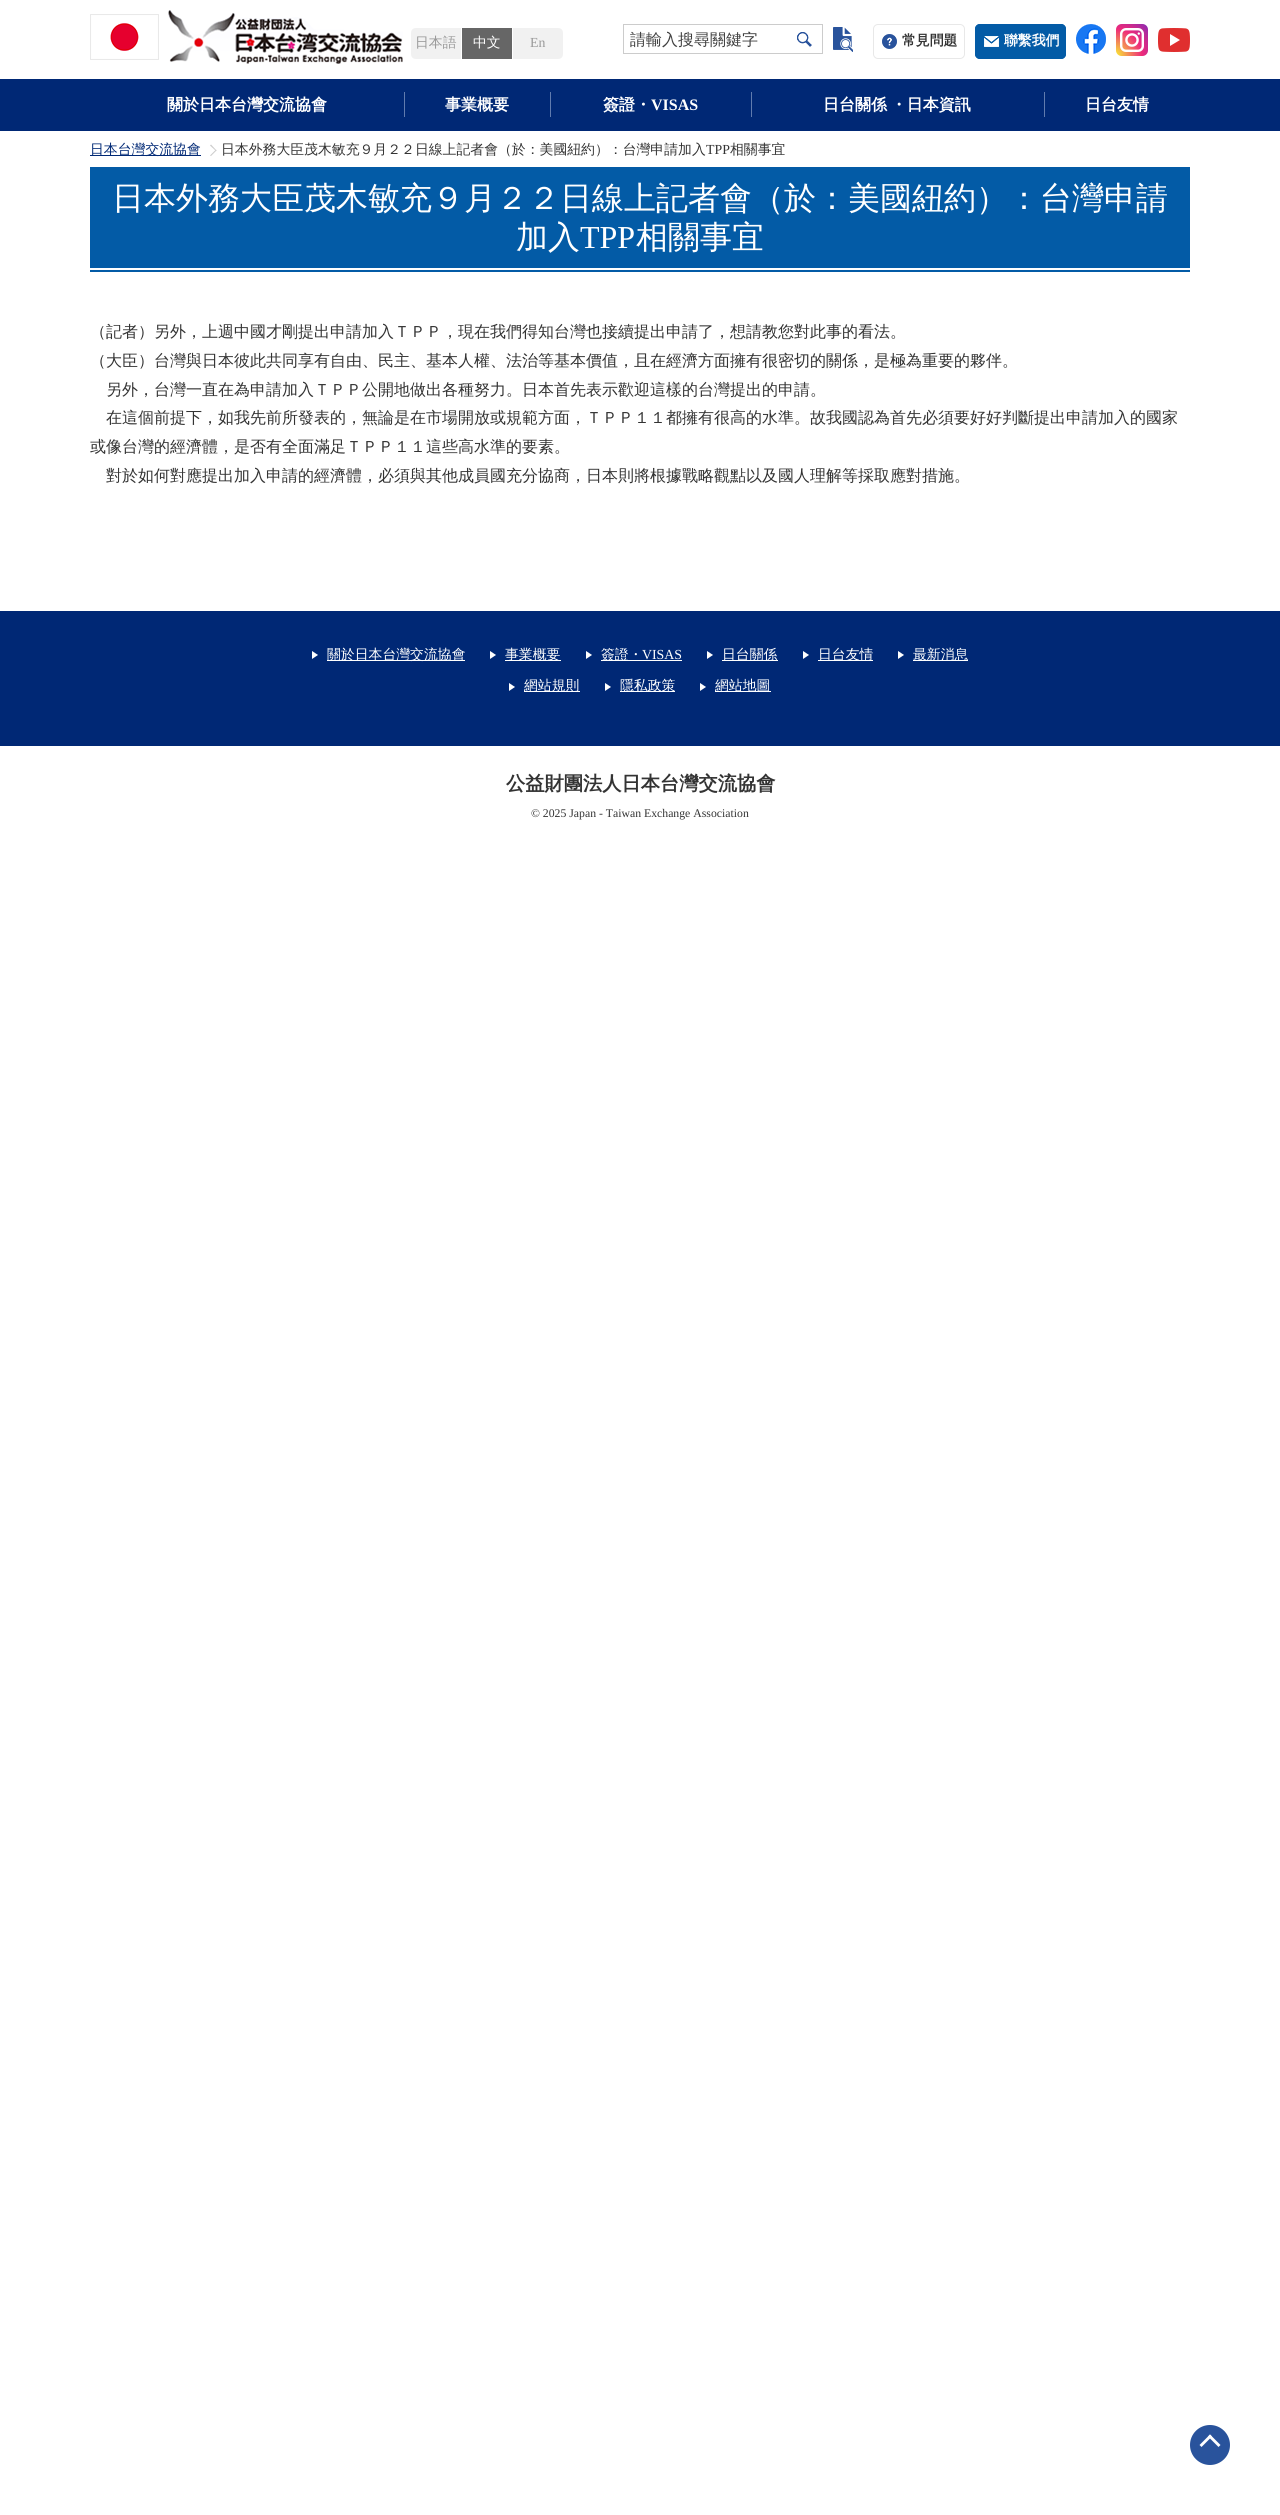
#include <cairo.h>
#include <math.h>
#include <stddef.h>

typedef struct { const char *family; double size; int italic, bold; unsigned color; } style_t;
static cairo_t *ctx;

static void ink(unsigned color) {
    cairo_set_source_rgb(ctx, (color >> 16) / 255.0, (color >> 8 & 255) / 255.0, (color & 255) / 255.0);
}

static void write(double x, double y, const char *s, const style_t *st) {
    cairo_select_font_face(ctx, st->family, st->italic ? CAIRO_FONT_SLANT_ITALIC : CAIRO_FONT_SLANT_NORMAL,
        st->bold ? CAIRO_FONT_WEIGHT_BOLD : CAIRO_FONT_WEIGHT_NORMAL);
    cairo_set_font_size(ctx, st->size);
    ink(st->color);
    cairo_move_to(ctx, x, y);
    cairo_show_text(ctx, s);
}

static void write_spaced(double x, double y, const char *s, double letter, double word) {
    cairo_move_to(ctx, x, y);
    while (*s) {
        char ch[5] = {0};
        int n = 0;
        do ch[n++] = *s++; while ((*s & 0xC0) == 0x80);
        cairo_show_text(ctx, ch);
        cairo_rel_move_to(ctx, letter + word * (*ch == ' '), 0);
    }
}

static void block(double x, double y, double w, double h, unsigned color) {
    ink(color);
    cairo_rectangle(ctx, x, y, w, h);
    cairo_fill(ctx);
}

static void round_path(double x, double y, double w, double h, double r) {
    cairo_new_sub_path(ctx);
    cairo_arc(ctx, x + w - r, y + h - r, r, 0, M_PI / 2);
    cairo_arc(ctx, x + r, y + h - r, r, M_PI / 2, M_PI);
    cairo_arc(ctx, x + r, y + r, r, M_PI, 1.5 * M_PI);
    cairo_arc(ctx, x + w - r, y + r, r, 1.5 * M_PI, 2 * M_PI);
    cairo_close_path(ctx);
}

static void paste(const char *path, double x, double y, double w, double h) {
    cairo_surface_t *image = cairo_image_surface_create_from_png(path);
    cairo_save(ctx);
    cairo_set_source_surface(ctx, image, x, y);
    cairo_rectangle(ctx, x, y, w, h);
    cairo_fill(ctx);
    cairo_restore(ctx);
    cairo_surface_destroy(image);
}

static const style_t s1 = {"WenQuanYi Zen Hei Medium", 13.85, 0, 0, 0x999999};
static const style_t s2 = {"WenQuanYi Zen Hei Medium", 13.85, 0, 0, 0xffffff};
static const style_t s3 = {"Liberation Serif", 13.85, 0, 0, 0x999999};
static const style_t s4 = {"WenQuanYi Zen Hei Medium", 16, 0, 0, 0x3f3f3f};
static const style_t s5 = {"WenQuanYi Zen Hei", 13.85, 0, 1, 0x333333};
static const style_t s6 = {"WenQuanYi Zen Hei", 13.85, 0, 1, 0xffffff};
static const style_t s7 = {"WenQuanYi Zen Hei", 16, 0, 1, 0xffffff};
static const style_t s8 = {"Liberation Serif", 16, 0, 1, 0xffffff};
static const style_t s9 = {"WenQuanYi Zen Hei Medium", 13.85, 0, 0, 0x002875};
static const style_t s10 = {"WenQuanYi Zen Hei Medium", 13.85, 0, 0, 0x333333};
static const style_t s11 = {"Liberation Serif", 13.85, 0, 0, 0x333333};
static const style_t s12 = {"WenQuanYi Zen Hei Medium", 32, 0, 0, 0xffffff};
static const style_t s13 = {"Liberation Serif", 32, 0, 0, 0xffffff};
static const style_t s14 = {"WenQuanYi Zen Hei Medium", 16, 0, 0, 0x333333};
static const style_t s15 = {"Liberation Serif", 13.85, 0, 0, 0xffffff};
static const style_t s16 = {"WenQuanYi Zen Hei", 19.25, 0, 1, 0x333333};
static const style_t s17 = {"Liberation Serif", 11.75, 0, 0, 0x333333};

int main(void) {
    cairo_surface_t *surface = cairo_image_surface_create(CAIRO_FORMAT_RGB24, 1280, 2515);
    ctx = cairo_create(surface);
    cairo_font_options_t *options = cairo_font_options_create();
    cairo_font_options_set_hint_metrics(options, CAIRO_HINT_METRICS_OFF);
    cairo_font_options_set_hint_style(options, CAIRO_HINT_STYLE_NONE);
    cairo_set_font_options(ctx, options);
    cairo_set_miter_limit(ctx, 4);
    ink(0xffffff);
    cairo_paint(ctx);
    paste("pic1.png", 90, 10, 313, 54);
    ink(0xf1f1f1);
    cairo_new_path(ctx);
    cairo_move_to(ctx, 416, 28);
    cairo_line_to(ctx, 461, 28);
    cairo_line_to(ctx, 461, 59);
    cairo_line_to(ctx, 416, 59);
    cairo_curve_to(ctx, 413, 59, 411, 57, 411, 54);
    cairo_line_to(ctx, 411, 33);
    cairo_curve_to(ctx, 411, 30, 413, 28, 416, 28);
    cairo_close_path(ctx);
    cairo_fill(ctx);
    write(415, 47, "日本語", &s1);
    block(462, 28, 50, 31, 0x666666);
    write(473, 47, "中文", &s2);
    ink(0xf1f1f1);
    cairo_new_path(ctx);
    cairo_move_to(ctx, 513, 28);
    cairo_line_to(ctx, 558, 28);
    cairo_curve_to(ctx, 561, 28, 563, 30, 563, 33);
    cairo_line_to(ctx, 563, 54);
    cairo_curve_to(ctx, 563, 57, 561, 59, 558, 59);
    cairo_line_to(ctx, 513, 59);
    cairo_close_path(ctx);
    cairo_fill(ctx);
    write(530, 47, "En", &s3);
    cairo_rectangle(ctx, 623.5, 24.5, 199, 29);
    ink(0xcccccc);
    cairo_set_line_width(ctx, 1);
    cairo_stroke(ctx);
    write(630, 45, "請輸入搜尋關鍵字", &s4);
    paste("pic2.png", 797, 32, 15, 15);
    paste("pic3.png", 833, 27, 20, 25);
    paste("pic4.png", 882, 34, 15, 15);
    round_path(873.5, 24.5, 91, 34, 4.5);
    ink(0xe8e8e8);
    cairo_stroke(ctx);
    write(902, 45, "常見問題", &s5);
    ink(0x035ba6);
    round_path(975, 24, 91, 35, 5);
    cairo_fill(ctx);
    paste("pic5.png", 984, 36, 15, 11);
    round_path(975.5, 24.5, 90, 34, 4.5);
    cairo_stroke(ctx);
    write(1004, 45, "聯繫我們", &s6);
    paste("pic6.png", 1076, 24, 30, 30);
    paste("pic7.png", 1116, 24, 32, 32);
    paste("pic8.png", 1158, 28, 32, 24);
    block(0, 79, 1280, 52, 0x002875);
    write(167, 110, "關於日本台灣交流協會", &s7);
    block(404, 92, 1, 25, 0x607bae);
    write(445, 110, "事業概要", &s7);
    block(550, 92, 1, 25, 0x607bae);
    write(603, 110, "簽證・", &s7);
    write(651, 110, "VISAS", &s8);
    block(751, 92, 1, 25, 0x607bae);
    cairo_select_font_face(ctx, "WenQuanYi Zen Hei", CAIRO_FONT_SLANT_NORMAL, CAIRO_FONT_WEIGHT_BOLD);
    ink(0xffffff);
    write_spaced(823, 110, "日台關係 ・日本資訊", 0, -1);
    block(1044, 92, 1, 25, 0x607bae);
    write(1085, 110, "日台友情", &s7);
    block(90, 155, 111, 1, 0x002875);
    write(90, 154, "日本台灣交流協會", &s9);
    ink(0xcccccc);
    cairo_new_path(ctx);
    cairo_move_to(ctx, 216.5, 150.5);
    cairo_line_to(ctx, 211, 156);
    cairo_line_to(ctx, 210, 155.5);
    cairo_line_to(ctx, 216, 149.5);
    cairo_close_path(ctx);
    cairo_fill(ctx);
    cairo_new_path(ctx);
    cairo_move_to(ctx, 216.5, 150.5);
    cairo_line_to(ctx, 216, 151);
    cairo_line_to(ctx, 210, 145.5);
    cairo_line_to(ctx, 211, 144.5);
    cairo_close_path(ctx);
    cairo_fill(ctx);
    write(221, 154, "日本外務大臣茂木敏充９月２２日線上記者會（於：美國紐約）：台灣申請加入", &s10);
    write(706, 154, "TPP", &s11);
    write(730, 154, "相關事宜", &s10);
    block(90, 167, 1100, 101, 0x035ba6);
    write(112, 209, "日本外務大臣茂木敏充９月２２日線上記者會（於：美國紐約）：台灣申請", &s12);
    write(516, 248, "加入", &s12);
    write(580, 248, "TPP", &s13);
    write(636, 248, "相關事宜", &s12);
    block(90, 270, 1100, 2, 0x035ba6);
    write(90, 337, "（記者）另外，上週中國才剛提出申請加入ＴＰＰ，現在我們得知台灣也接續提出申請了，想請教您對此事的看法。", &s14);
    write(90, 366, "（大臣）台灣與日本彼此共同享有自由、民主、基本人權、法治等基本價值，且在經濟方面擁有很密切的關係，是極為重要的夥伴。", &s14);
    write(106, 395, "另外，台灣一直在為申請加入ＴＰＰ公開地做出各種努力。日本首先表示歡迎這樣的台灣提出的申請。", &s14);
    write(106, 423, "在這個前提下，如我先前所發表的，無論是在市場開放或規範方面，ＴＰＰ１１都擁有很高的水準。故我國認為首先必須要好好判斷提出申請加入的國家", &s14);
    write(90, 452, "或像台灣的經濟體，是否有全面滿足ＴＰＰ１１這些高水準的要素。", &s14);
    write(106, 481, "對於如何對應提出加入申請的經濟體，必須與其他成員國充分協商，日本則將根據戰略觀點以及國人理解等採取應對措施。", &s14);
    block(0, 611, 1280, 135, 0x002875);
    ink(0xffffff);
    cairo_new_path(ctx);
    cairo_move_to(ctx, 312, 659);
    cairo_line_to(ctx, 312, 651);
    cairo_line_to(ctx, 318, 655);
    cairo_close_path(ctx);
    cairo_fill(ctx);
    block(327, 660, 138, 1, 0xffffff);
    write(327, 659, "關於日本台灣交流協會", &s2);
    cairo_new_path(ctx);
    cairo_move_to(ctx, 490, 659);
    cairo_line_to(ctx, 490, 651);
    cairo_line_to(ctx, 496, 655);
    cairo_close_path(ctx);
    cairo_fill(ctx);
    block(505, 660, 56, 1, 0xffffff);
    write(505, 659, "事業概要", &s2);
    cairo_new_path(ctx);
    cairo_move_to(ctx, 586, 659);
    cairo_line_to(ctx, 586, 651);
    cairo_line_to(ctx, 592, 655);
    cairo_close_path(ctx);
    cairo_fill(ctx);
    block(601, 660, 81, 1, 0xffffff);
    write(601, 659, "簽證・", &s2);
    write(642, 659, "VISAS", &s15);
    cairo_new_path(ctx);
    cairo_move_to(ctx, 707, 659);
    cairo_line_to(ctx, 707, 651);
    cairo_line_to(ctx, 713, 655);
    cairo_close_path(ctx);
    cairo_fill(ctx);
    block(722, 660, 56, 1, 0xffffff);
    write(722, 659, "日台關係", &s2);
    cairo_new_path(ctx);
    cairo_move_to(ctx, 803, 659);
    cairo_line_to(ctx, 803, 651);
    cairo_line_to(ctx, 809, 655);
    cairo_close_path(ctx);
    cairo_fill(ctx);
    block(818, 660, 55, 1, 0xffffff);
    write(818, 659, "日台友情", &s2);
    cairo_new_path(ctx);
    cairo_move_to(ctx, 898, 659);
    cairo_line_to(ctx, 898, 651);
    cairo_line_to(ctx, 904, 655);
    cairo_close_path(ctx);
    cairo_fill(ctx);
    block(913, 660, 55, 1, 0xffffff);
    write(913, 659, "最新消息", &s2);
    cairo_new_path(ctx);
    cairo_move_to(ctx, 509, 691);
    cairo_line_to(ctx, 509, 683);
    cairo_line_to(ctx, 515, 687);
    cairo_close_path(ctx);
    cairo_fill(ctx);
    block(524, 691, 56, 1, 0xffffff);
    write(524, 690, "網站規則", &s2);
    cairo_new_path(ctx);
    cairo_move_to(ctx, 605, 691);
    cairo_line_to(ctx, 605, 683);
    cairo_line_to(ctx, 611, 687);
    cairo_close_path(ctx);
    cairo_fill(ctx);
    block(620, 691, 55, 1, 0xffffff);
    write(620, 690, "隱私政策", &s2);
    cairo_new_path(ctx);
    cairo_move_to(ctx, 700, 691);
    cairo_line_to(ctx, 700, 683);
    cairo_line_to(ctx, 706, 687);
    cairo_close_path(ctx);
    cairo_fill(ctx);
    block(715, 691, 56, 1, 0xffffff);
    write(715, 690, "網站地圖", &s2);
    write(506, 790, "公益財團法人日本台灣交流協會", &s16);
    write(531, 817, "© 2025 Japan - Taiwan Exchange Association", &s17);
    ink(0x29539c);
    cairo_new_path(ctx);
    cairo_arc(ctx, 1210, 2445, 20, 0, 2 * M_PI);
    cairo_fill(ctx);
    ink(0xffffff);
    cairo_new_path(ctx);
    cairo_move_to(ctx, 1199.5, 2445);
    cairo_line_to(ctx, 1210, 2434.5);
    cairo_line_to(ctx, 1212, 2436.5);
    cairo_line_to(ctx, 1201.5, 2447);
    cairo_close_path(ctx);
    cairo_fill(ctx);
    cairo_new_path(ctx);
    cairo_move_to(ctx, 1208, 2436.5);
    cairo_line_to(ctx, 1210, 2434.5);
    cairo_line_to(ctx, 1220.5, 2445);
    cairo_line_to(ctx, 1218.5, 2447);
    cairo_close_path(ctx);
    cairo_fill(ctx);
    cairo_surface_write_to_png(surface, "screenshot.png");
    cairo_font_options_destroy(options);
    cairo_destroy(ctx);
    cairo_surface_destroy(surface);
    return 0;
}
